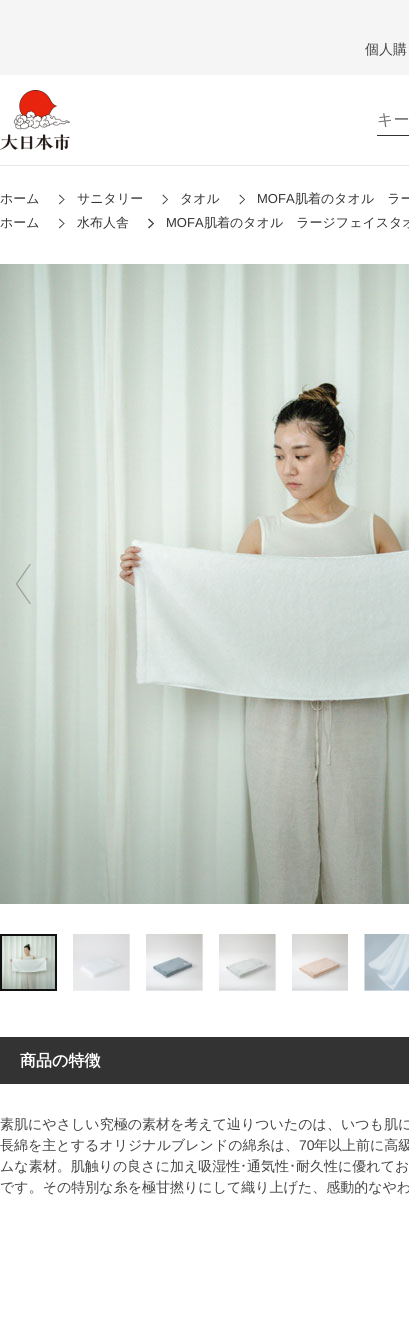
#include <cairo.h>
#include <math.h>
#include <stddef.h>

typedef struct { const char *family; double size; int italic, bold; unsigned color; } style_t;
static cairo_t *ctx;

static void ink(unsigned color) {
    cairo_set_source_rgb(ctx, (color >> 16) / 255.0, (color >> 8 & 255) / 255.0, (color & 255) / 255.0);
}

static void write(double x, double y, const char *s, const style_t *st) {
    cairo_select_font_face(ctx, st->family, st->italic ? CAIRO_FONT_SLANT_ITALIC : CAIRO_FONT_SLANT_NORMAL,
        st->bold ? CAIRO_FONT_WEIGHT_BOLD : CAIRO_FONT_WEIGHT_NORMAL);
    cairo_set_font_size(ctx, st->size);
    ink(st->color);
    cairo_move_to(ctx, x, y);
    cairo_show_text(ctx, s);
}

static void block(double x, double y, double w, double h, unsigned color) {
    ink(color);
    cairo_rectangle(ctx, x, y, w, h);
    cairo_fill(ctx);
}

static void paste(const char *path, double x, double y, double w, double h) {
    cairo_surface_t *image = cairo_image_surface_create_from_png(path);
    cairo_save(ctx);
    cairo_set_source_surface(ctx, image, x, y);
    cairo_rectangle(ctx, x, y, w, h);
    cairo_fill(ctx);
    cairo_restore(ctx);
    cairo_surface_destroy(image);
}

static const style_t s1 = {"WenQuanYi Zen Hei Medium", 14, 0, 0, 0x444444};
static const style_t s2 = {"WenQuanYi Zen Hei Medium", 16, 0, 0, 0x757575};
static const style_t s3 = {"WenQuanYi Zen Hei Medium", 13, 0, 0, 0x333333};
static const style_t s4 = {"Liberation Sans", 13, 0, 0, 0x333333};
static const style_t s5 = {"WenQuanYi Zen Hei", 16, 0, 1, 0xffffff};
static const style_t s6 = {"Liberation Sans", 14, 0, 0, 0x444444};
static const style_t s7 = {"IPAPGothic", 14, 0, 0, 0x444444};

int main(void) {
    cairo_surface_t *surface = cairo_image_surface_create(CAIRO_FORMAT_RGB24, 409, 1339);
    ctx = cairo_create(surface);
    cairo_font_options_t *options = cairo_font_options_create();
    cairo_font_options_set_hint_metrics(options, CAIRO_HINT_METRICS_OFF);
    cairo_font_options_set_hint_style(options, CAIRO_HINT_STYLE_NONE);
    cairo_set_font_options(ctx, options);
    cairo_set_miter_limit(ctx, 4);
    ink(0xffffff);
    cairo_paint(ctx);
    block(0, 0, 409, 75, 0xf5f5f5);
    write(365, 54, "個人購", &s1);
    block(0, 165, 409, 1, 0xe6e6e6);
    paste("pic1.png", 0, 90, 70, 60);
    block(377, 135, 32, 1, 0x333333);
    write(377, 125, "キー", &s2);
    write(0, 203, "ホーム", &s3);
    cairo_new_path(ctx);
    cairo_move_to(ctx, 59.5, 194.5);
    cairo_line_to(ctx, 64.5, 199.5);
    cairo_line_to(ctx, 64, 200);
    cairo_line_to(ctx, 59, 195.5);
    cairo_close_path(ctx);
    cairo_fill(ctx);
    cairo_new_path(ctx);
    cairo_move_to(ctx, 64, 199);
    cairo_line_to(ctx, 64.5, 199.5);
    cairo_line_to(ctx, 59.5, 204.5);
    cairo_line_to(ctx, 59, 203.5);
    cairo_close_path(ctx);
    cairo_fill(ctx);
    write(77, 203, "サニタリー", &s3);
    cairo_new_path(ctx);
    cairo_move_to(ctx, 163, 194.5);
    cairo_line_to(ctx, 168, 199.5);
    cairo_line_to(ctx, 167.5, 200);
    cairo_line_to(ctx, 162.5, 195.5);
    cairo_close_path(ctx);
    cairo_fill(ctx);
    cairo_new_path(ctx);
    cairo_move_to(ctx, 167.5, 199);
    cairo_line_to(ctx, 168, 199.5);
    cairo_line_to(ctx, 163, 204.5);
    cairo_line_to(ctx, 162.5, 203.5);
    cairo_close_path(ctx);
    cairo_fill(ctx);
    write(180, 203, "タオル", &s3);
    cairo_new_path(ctx);
    cairo_move_to(ctx, 240, 194.5);
    cairo_line_to(ctx, 245, 199.5);
    cairo_line_to(ctx, 244.5, 200);
    cairo_line_to(ctx, 239.5, 195.5);
    cairo_close_path(ctx);
    cairo_fill(ctx);
    cairo_new_path(ctx);
    cairo_move_to(ctx, 244.5, 199);
    cairo_line_to(ctx, 245, 199.5);
    cairo_line_to(ctx, 240, 204.5);
    cairo_line_to(ctx, 239.5, 203.5);
    cairo_close_path(ctx);
    cairo_fill(ctx);
    write(257, 203, "MOFA", &s4);
    write(295, 203, "肌着のタオル　ラー", &s3);
    write(0, 227, "ホーム", &s3);
    cairo_new_path(ctx);
    cairo_move_to(ctx, 59.5, 218.5);
    cairo_line_to(ctx, 64.5, 223.5);
    cairo_line_to(ctx, 64, 224);
    cairo_line_to(ctx, 59, 219.5);
    cairo_close_path(ctx);
    cairo_fill(ctx);
    cairo_new_path(ctx);
    cairo_move_to(ctx, 64, 223);
    cairo_line_to(ctx, 64.5, 223.5);
    cairo_line_to(ctx, 59.5, 228.5);
    cairo_line_to(ctx, 59, 227.5);
    cairo_close_path(ctx);
    cairo_fill(ctx);
    write(77, 227, "水布人舎", &s3);
    cairo_new_path(ctx);
    cairo_move_to(ctx, 149, 218.5);
    cairo_line_to(ctx, 154, 223.5);
    cairo_line_to(ctx, 153, 224);
    cairo_line_to(ctx, 148, 219.5);
    cairo_close_path(ctx);
    cairo_fill(ctx);
    cairo_new_path(ctx);
    cairo_move_to(ctx, 153, 223);
    cairo_line_to(ctx, 154, 223.5);
    cairo_line_to(ctx, 149, 228.5);
    cairo_line_to(ctx, 148, 227.5);
    cairo_close_path(ctx);
    cairo_fill(ctx);
    write(166, 227, "MOFA", &s4);
    write(204, 227, "肌着のタオル　ラージフェイスタオ", &s3);
    paste("pic2.png", 0, 264, 409, 640);
    cairo_new_path(ctx);
    cairo_move_to(ctx, 30, 603.5);
    cairo_line_to(ctx, 16.5, 584);
    cairo_line_to(ctx, 30, 564.5);
    cairo_set_source_rgba(ctx, 0.2, 0.2, 0.2, 0.35);
    cairo_set_line_width(ctx, 1.2);
    cairo_set_line_cap(ctx, CAIRO_LINE_CAP_ROUND);
    cairo_set_line_join(ctx, CAIRO_LINE_JOIN_ROUND);
    cairo_stroke(ctx);
    paste("pic3.png", 2, 936, 53, 53);
    cairo_rectangle(ctx, 1, 935, 55, 55);
    ink(0x111111);
    cairo_set_line_width(ctx, 2);
    cairo_set_line_cap(ctx, CAIRO_LINE_CAP_BUTT);
    cairo_set_line_join(ctx, CAIRO_LINE_JOIN_MITER);
    cairo_stroke(ctx);
    block(73, 934, 57, 57, 0xf6f6f6);
    paste("pic4.png", 73, 934, 57, 57);
    block(146, 934, 57, 57, 0xf6f6f6);
    paste("pic5.png", 146, 934, 57, 57);
    block(219, 934, 57, 57, 0xf6f6f6);
    paste("pic6.png", 219, 934, 57, 57);
    block(292, 990, 56, 1, 0xf6f6f6);
    paste("pic7.png", 292, 934, 56, 57);
    block(364, 934, 45, 57, 0xf6f6f6);
    paste("pic8.png", 364, 934, 45, 57);
    block(0, 1037, 409, 47, 0x333333);
    write(20, 1066, "商品の特徴", &s5);
    write(0, 1129, "素肌にやさしい究極の素材を考えて辿りついたのは、いつも肌に", &s1);
    write(0, 1150, "長綿を主とするオリジナルブレンドの綿糸は、", &s1);
    write(299, 1150, "70", &s6);
    write(314, 1150, "年以上前に高級", &s1);
    write(0, 1171, "ムな素材。肌触りの良さに加え吸湿性", &s1);
    write(240, 1171, "･", &s7);
    write(247, 1171, "通気性", &s1);
    write(289, 1171, "･", &s7);
    write(296, 1171, "耐久性に優れてお", &s1);
    write(0, 1192, "です。その特別な糸を極甘撚りにして織り上げた、感動的なやわ", &s1);
    cairo_surface_write_to_png(surface, "screenshot.png");
    cairo_font_options_destroy(options);
    cairo_destroy(ctx);
    cairo_surface_destroy(surface);
    return 0;
}
